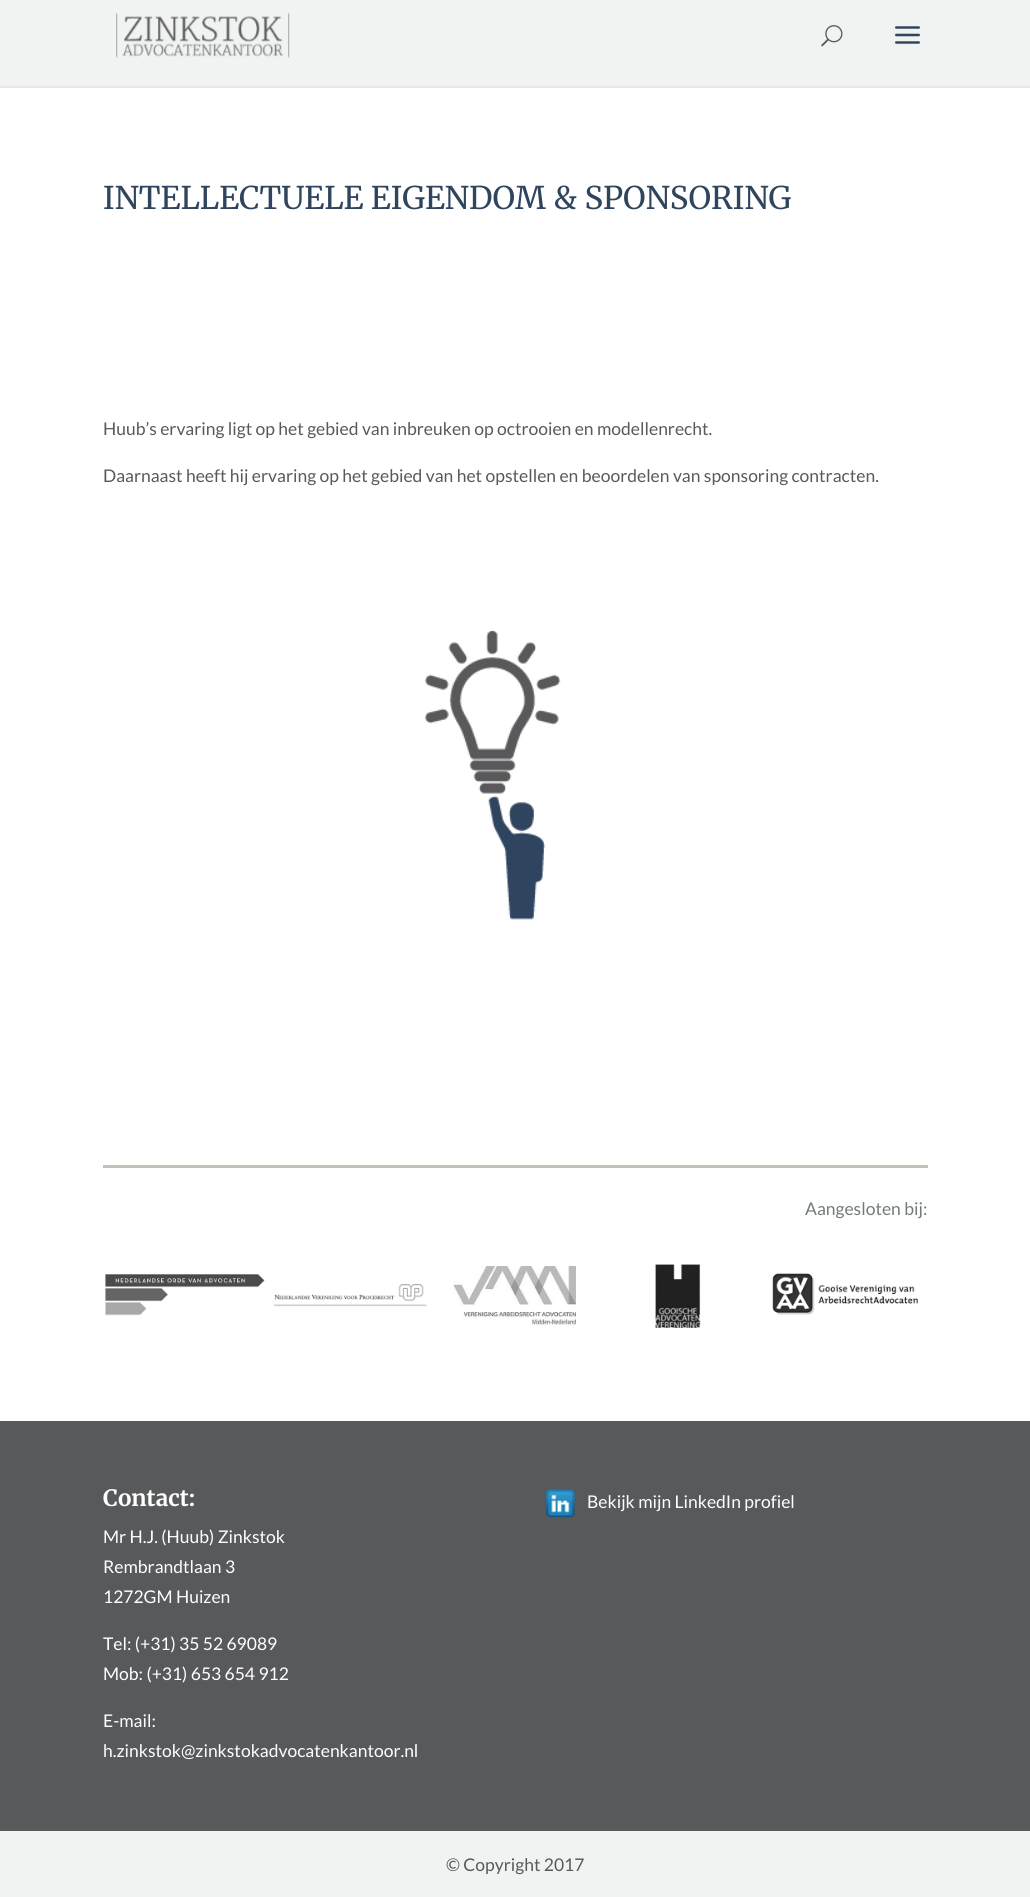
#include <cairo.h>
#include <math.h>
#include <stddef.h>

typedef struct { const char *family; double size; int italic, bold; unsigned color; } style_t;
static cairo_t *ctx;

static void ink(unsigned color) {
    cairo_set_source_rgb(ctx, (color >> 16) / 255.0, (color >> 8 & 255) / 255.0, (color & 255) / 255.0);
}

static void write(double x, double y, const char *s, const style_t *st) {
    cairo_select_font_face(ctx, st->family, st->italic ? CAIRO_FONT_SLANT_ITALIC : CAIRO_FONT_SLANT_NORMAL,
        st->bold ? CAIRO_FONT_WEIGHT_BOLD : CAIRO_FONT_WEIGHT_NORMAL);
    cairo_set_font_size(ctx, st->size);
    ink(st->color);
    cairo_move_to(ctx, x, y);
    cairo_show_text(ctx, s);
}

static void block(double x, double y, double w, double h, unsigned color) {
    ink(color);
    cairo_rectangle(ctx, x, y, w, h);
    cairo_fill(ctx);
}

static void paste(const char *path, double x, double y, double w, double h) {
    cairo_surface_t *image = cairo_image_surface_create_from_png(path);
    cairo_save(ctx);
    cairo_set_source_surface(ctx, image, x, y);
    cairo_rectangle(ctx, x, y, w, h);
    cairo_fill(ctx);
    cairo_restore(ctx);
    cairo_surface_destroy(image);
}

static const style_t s1 = {"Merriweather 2 Light", 31.25, 0, 0, 0x2f455e};
static const style_t s2 = {"Lato", 17.5, 0, 0, 0x58595b};
static const style_t s3 = {"Lato", 17.5, 0, 0, 0x727c75};
static const style_t s4 = {"Merriweather Light", 22.5, 0, 0, 0xffffff};
static const style_t s5 = {"Lato", 17.5, 0, 0, 0xffffff};

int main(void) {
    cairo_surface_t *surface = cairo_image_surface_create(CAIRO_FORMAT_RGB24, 1030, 1897);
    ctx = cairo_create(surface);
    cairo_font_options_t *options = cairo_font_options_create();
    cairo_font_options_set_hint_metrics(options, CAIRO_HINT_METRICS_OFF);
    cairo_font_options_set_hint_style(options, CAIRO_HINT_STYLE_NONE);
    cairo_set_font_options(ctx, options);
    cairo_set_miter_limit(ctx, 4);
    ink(0x58595b);
    cairo_paint(ctx);
    block(0, 86, 1030, 2, 0xe6e6e6);
    block(0, 0, 1030, 86, 0xf1f2f2);
    paste("pic1.png", 116, 12, 174, 46);
    paste("pic2.png", 821, 25, 22, 22);
    paste("pic3.png", 895, 26, 25, 18);
    block(0, 88, 1030, 1333, 0xffffff);
    write(103, 209, "INTELLECTUELE EIGENDOM & SPONSORING", &s1);
    write(103, 435, "Huub’s ervaring ligt op het gebied van inbreuken op octrooien en modellenrecht.", &s2);
    write(103, 482, "Daarnaast heeft hij ervaring op het gebied van het opstellen en beoordelen van sponsoring contracten.", &s2);
    paste("pic4.png", 424, 630, 137, 290);
    block(103, 1165, 825, 3, 0xc1c1b6);
    write(805, 1215, "Aangesloten bij:", &s3);
    paste("pic5.png", 105, 1274, 160, 42);
    paste("pic6.png", 274, 1284, 153, 23);
    paste("pic7.png", 453, 1266, 123, 59);
    paste("pic8.png", 655, 1264, 46, 64);
    paste("pic9.png", 772, 1273, 146, 42);
    write(103, 1506, "Contact:", &s4);
    write(103, 1543, "Mr H.J. (Huub) Zinkstok", &s5);
    write(103, 1573, "Rembrandtlaan 3", &s5);
    write(103, 1603, "1272GM Huizen", &s5);
    write(103, 1650, "Tel: (+31) 35 52 69089", &s5);
    write(103, 1680, "Mob: (+31) 653 654 912", &s5);
    write(103, 1727, "E-mail:", &s5);
    write(103, 1757, "h.zinkstok@zinkstokadvocatenkantoor.nl", &s5);
    paste("pic10.png", 546, 1489, 29, 29);
    write(587, 1508, "Bekijk mijn LinkedIn profiel", &s5);
    block(0, 1831, 1030, 66, 0xf1f2f2);
    write(446, 1871, "© Copyright 2017", &s2);
    cairo_surface_write_to_png(surface, "screenshot.png");
    cairo_font_options_destroy(options);
    cairo_destroy(ctx);
    cairo_surface_destroy(surface);
    return 0;
}
